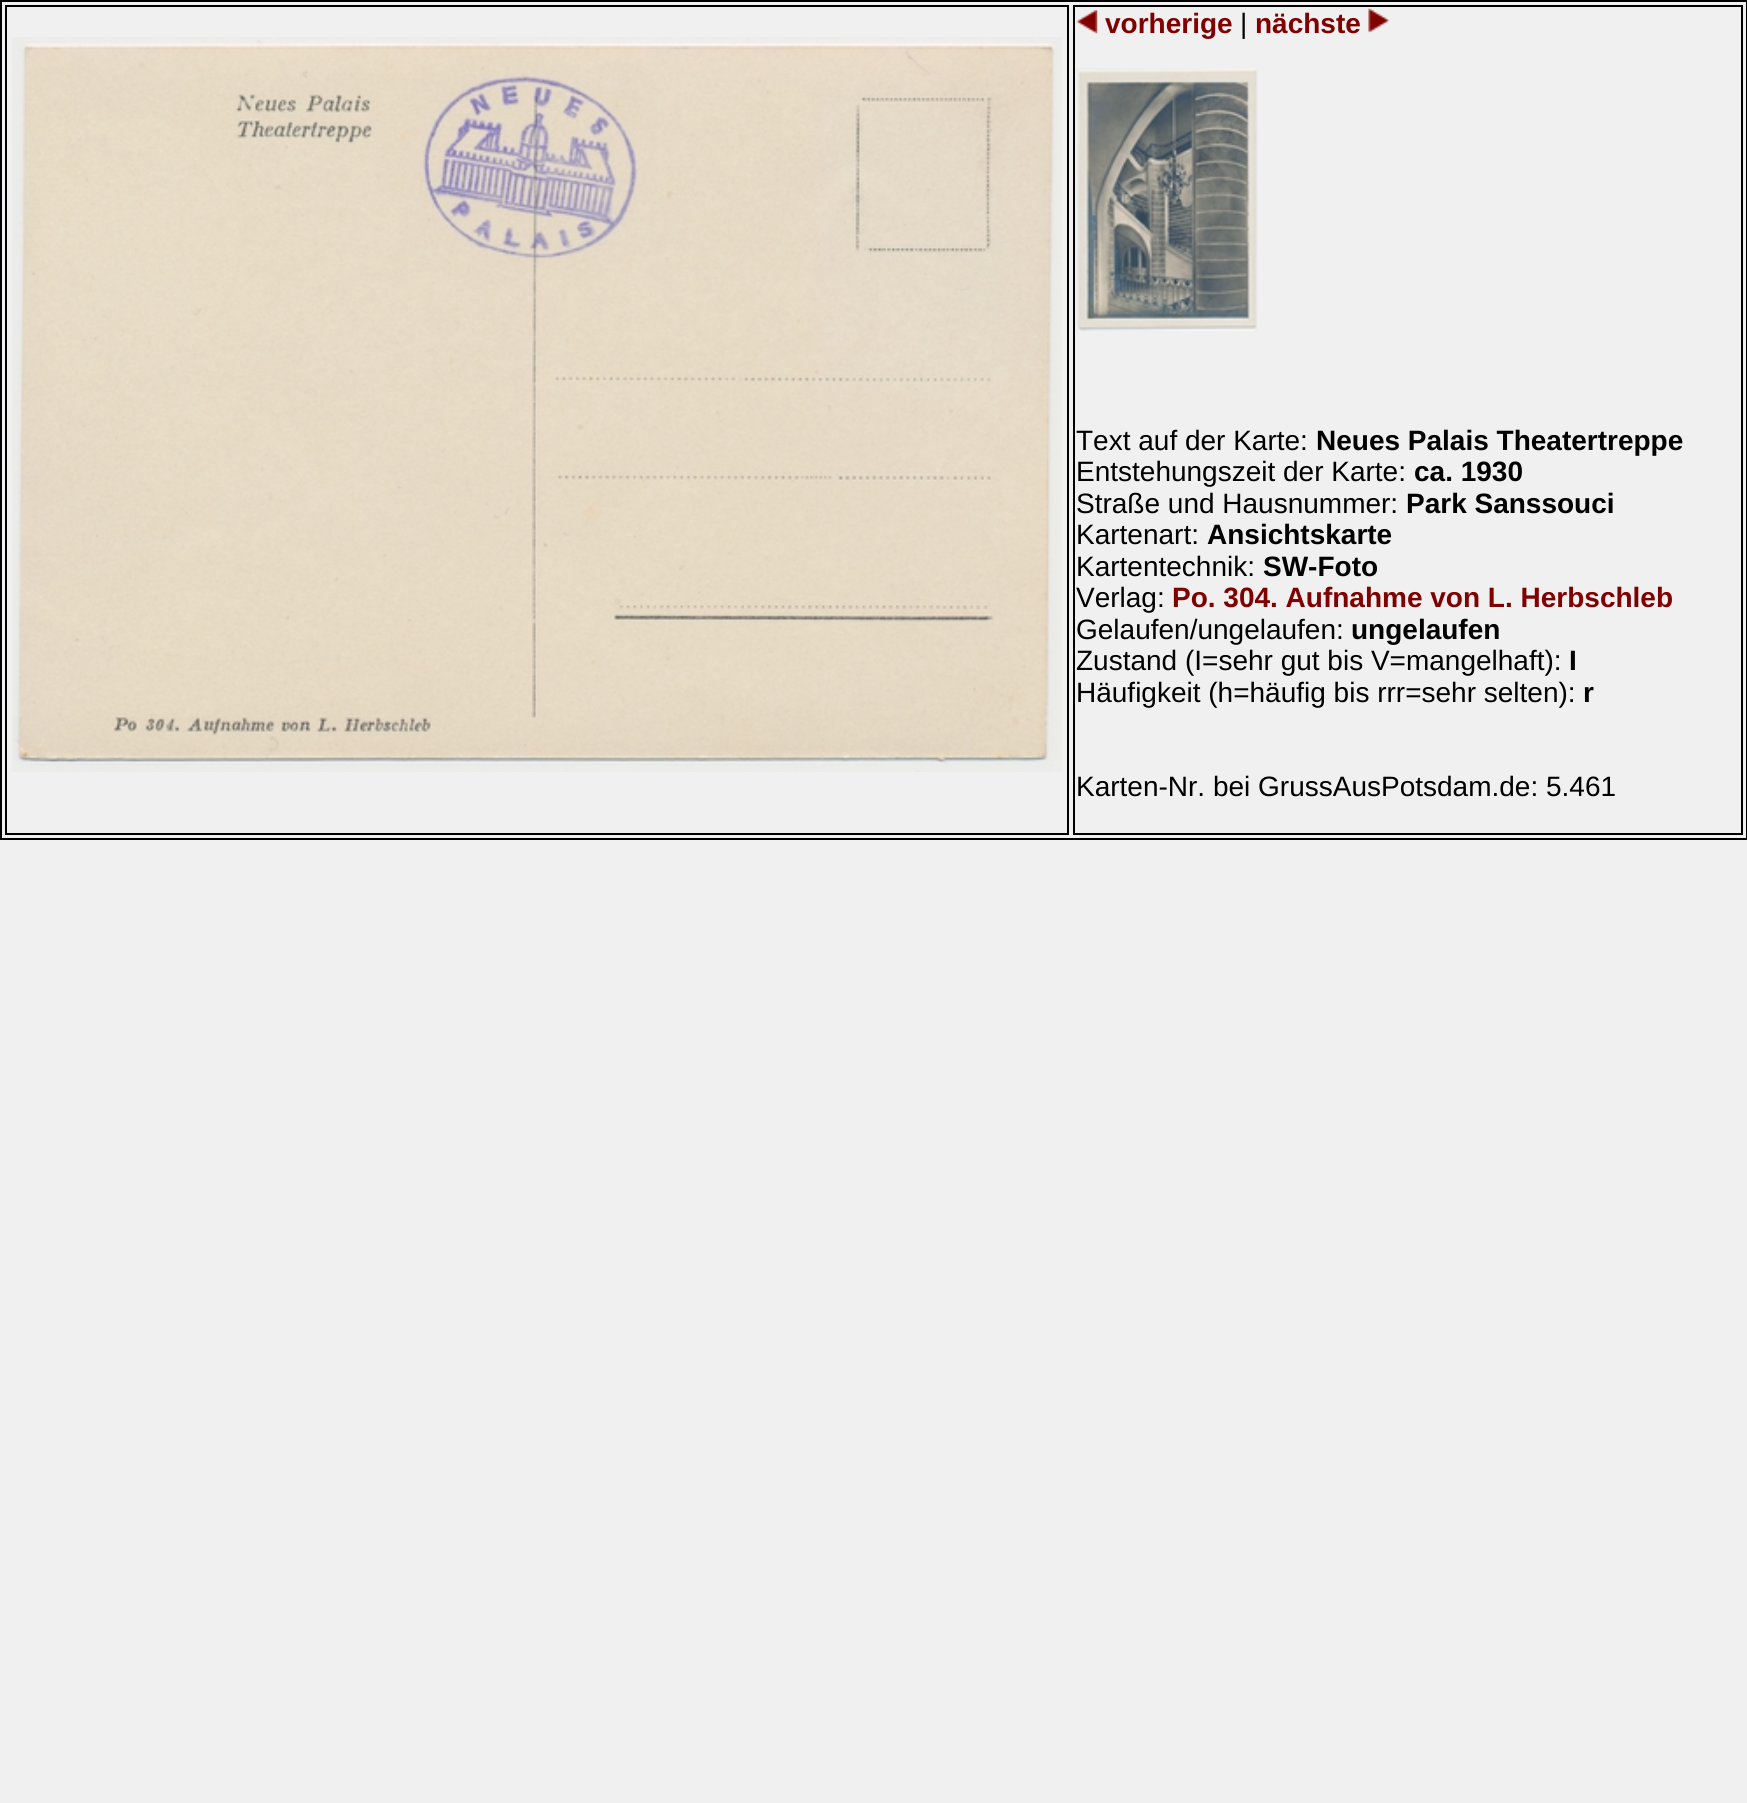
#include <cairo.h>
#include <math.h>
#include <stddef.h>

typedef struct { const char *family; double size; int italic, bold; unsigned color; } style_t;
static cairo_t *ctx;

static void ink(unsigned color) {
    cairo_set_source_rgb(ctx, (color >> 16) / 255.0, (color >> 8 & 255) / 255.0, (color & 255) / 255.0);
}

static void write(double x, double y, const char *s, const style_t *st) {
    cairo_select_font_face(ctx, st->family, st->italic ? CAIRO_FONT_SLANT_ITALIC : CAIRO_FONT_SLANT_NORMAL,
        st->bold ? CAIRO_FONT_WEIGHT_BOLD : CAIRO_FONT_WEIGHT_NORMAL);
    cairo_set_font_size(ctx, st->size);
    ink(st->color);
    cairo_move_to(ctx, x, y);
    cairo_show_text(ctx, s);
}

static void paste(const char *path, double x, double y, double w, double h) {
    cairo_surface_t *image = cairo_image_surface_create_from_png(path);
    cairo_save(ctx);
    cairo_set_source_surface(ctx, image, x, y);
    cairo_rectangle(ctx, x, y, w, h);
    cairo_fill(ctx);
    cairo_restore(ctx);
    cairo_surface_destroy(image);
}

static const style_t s1 = {"Liberation Sans", 28, 0, 1, 0x800000};
static const style_t s2 = {"Liberation Sans", 28, 0, 0, 0x000000};
static const style_t s3 = {"Liberation Sans", 28, 0, 1, 0x000000};

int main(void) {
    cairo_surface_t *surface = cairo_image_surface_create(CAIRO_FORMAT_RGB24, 1747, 1803);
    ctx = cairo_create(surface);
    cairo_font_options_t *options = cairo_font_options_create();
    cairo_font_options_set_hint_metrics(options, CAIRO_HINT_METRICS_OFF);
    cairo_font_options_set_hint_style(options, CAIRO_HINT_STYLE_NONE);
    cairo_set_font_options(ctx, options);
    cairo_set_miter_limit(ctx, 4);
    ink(0xf0f0f0);
    cairo_paint(ctx);
    cairo_rectangle(ctx, 1, 1, 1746, 838);
    ink(0x000000);
    cairo_stroke(ctx);
    cairo_rectangle(ctx, 6, 6, 1062, 828);
    cairo_stroke(ctx);
    paste("pic1.png", 12, 37, 1050, 735);
    cairo_rectangle(ctx, 1074, 6, 668, 828);
    cairo_stroke(ctx);
    paste("pic2.png", 1076, 9, 22, 25);
    write(1105, 33, "vorherige", &s1);
    write(1240, 33, "|", &s2);
    write(1255, 33, "nächste", &s1);
    paste("pic3.png", 1368, 8, 22, 25);
    paste("pic4.png", 1076, 68, 182, 263);
    write(1076, 450, "Text auf der Karte:", &s2);
    write(1316, 450, "Neues Palais Theatertreppe", &s3);
    write(1076, 481, "Entstehungszeit der Karte:", &s2);
    write(1414, 481, "ca. 1930", &s3);
    write(1076, 513, "Straße und Hausnummer:", &s2);
    write(1406, 513, "Park Sanssouci", &s3);
    write(1076, 544, "Kartenart:", &s2);
    write(1207, 544, "Ansichtskarte", &s3);
    write(1076, 576, "Kartentechnik:", &s2);
    write(1263, 576, "SW-Foto", &s3);
    write(1076, 607, "Verlag:", &s2);
    write(1172, 607, "Po. 304. Aufnahme von L. Herbschleb", &s1);
    write(1076, 639, "Gelaufen/ungelaufen:", &s2);
    write(1351, 639, "ungelaufen", &s3);
    write(1076, 670, "Zustand (I=sehr gut bis V=mangelhaft):", &s2);
    write(1569, 670, "I", &s3);
    write(1076, 702, "Häufigkeit (h=häufig bis rrr=sehr selten):", &s2);
    write(1583, 702, "r", &s3);
    write(1076, 796, "Karten-Nr. bei GrussAusPotsdam.de: 5.461", &s2);
    cairo_surface_write_to_png(surface, "screenshot.png");
    cairo_font_options_destroy(options);
    cairo_destroy(ctx);
    cairo_surface_destroy(surface);
    return 0;
}
